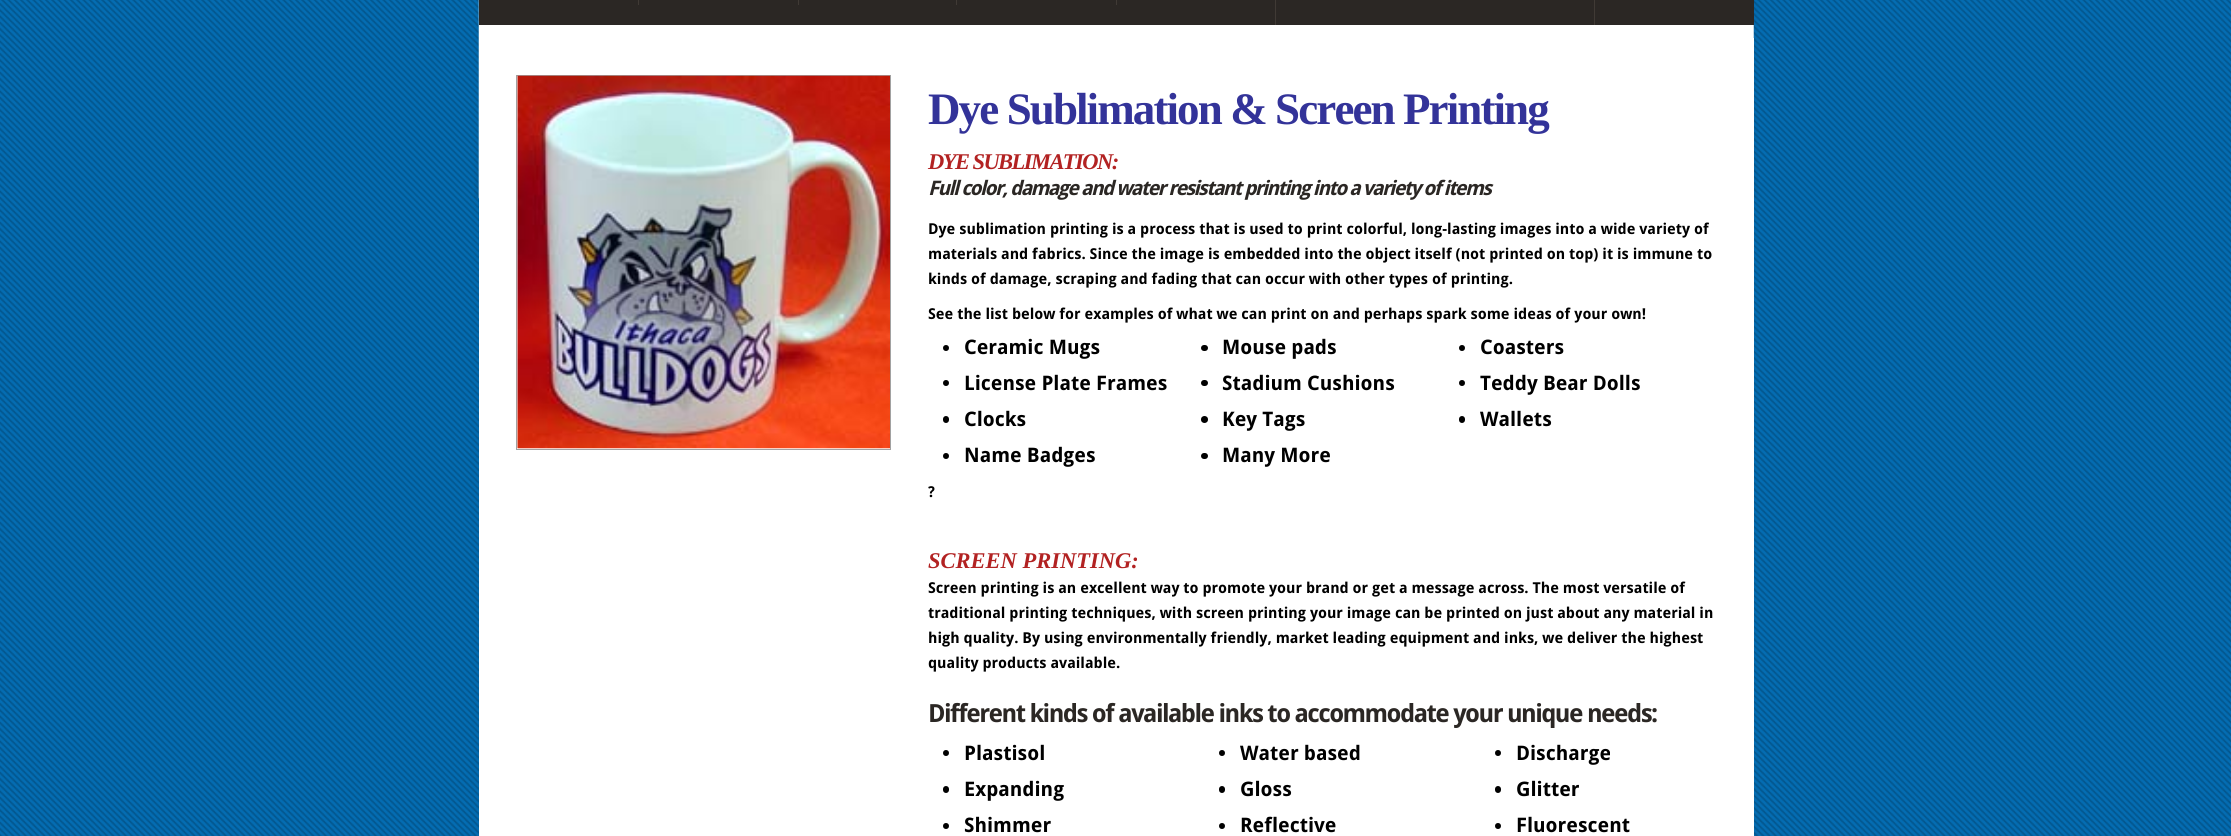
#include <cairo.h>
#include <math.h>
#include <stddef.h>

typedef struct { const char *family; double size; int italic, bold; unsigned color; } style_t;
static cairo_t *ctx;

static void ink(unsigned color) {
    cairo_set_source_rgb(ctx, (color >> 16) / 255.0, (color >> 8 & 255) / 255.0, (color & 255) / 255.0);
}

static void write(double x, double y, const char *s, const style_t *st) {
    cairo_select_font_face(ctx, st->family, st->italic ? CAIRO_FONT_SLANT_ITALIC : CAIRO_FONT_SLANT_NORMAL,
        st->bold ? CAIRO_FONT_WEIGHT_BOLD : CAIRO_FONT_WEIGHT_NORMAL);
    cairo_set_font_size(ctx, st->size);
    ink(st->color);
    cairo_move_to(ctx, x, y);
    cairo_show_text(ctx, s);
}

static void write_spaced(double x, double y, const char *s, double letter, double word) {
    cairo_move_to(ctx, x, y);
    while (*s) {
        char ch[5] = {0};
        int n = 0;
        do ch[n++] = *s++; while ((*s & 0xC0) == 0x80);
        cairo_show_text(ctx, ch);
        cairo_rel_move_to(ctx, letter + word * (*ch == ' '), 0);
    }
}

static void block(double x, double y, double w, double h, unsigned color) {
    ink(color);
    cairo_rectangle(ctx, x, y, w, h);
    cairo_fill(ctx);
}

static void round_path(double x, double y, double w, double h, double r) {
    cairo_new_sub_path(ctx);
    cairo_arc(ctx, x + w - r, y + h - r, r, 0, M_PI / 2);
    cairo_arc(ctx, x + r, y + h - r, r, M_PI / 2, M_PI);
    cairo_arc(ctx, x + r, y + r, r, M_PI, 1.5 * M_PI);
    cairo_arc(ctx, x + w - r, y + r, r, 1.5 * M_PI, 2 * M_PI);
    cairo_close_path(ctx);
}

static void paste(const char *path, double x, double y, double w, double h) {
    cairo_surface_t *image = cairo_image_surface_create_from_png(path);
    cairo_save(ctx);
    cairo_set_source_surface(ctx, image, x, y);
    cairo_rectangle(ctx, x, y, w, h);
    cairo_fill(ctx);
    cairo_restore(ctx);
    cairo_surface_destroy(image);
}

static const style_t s1 = {"Droid Sans", 15, 0, 1, 0x000000};
static const style_t s2 = {"Droid Sans", 20, 0, 1, 0x000000};
static const style_t s3 = {"Liberation Serif", 22.5, 1, 1, 0xb22222};

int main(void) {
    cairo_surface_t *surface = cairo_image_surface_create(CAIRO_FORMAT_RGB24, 2231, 836);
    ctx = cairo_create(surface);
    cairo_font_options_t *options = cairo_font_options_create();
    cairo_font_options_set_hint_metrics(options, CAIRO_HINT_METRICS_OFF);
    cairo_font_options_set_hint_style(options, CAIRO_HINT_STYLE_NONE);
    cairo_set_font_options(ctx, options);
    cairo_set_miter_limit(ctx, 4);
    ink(0x046db3);
    cairo_paint(ctx);
    paste("pic1.png", 0, 0, 2231, 836);
    paste("pic2.png", 474, 0, 1284, 199);
    block(479, 0, 1275, 25, 0x2b2724);
    block(638, 0, 1, 5, 0x403a35);
    block(798, 0, 1, 5, 0x403a35);
    block(956, 0, 1, 5, 0x403a35);
    block(1116, 0, 1, 5, 0x403a35);
    block(1275, 0, 1, 25, 0x403a35);
    block(1594, 0, 1, 25, 0x403a35);
    block(479, 38, 1275, 798, 0xffffff);
    cairo_rectangle(ctx, 516.5, 75.5, 374, 374);
    ink(0xa1a1a1);
    cairo_set_line_width(ctx, 1);
    cairo_stroke(ctx);
    paste("pic3.png", 517, 75, 373, 374);
    cairo_select_font_face(ctx, "Liberation Serif", CAIRO_FONT_SLANT_NORMAL, CAIRO_FONT_WEIGHT_BOLD);
    cairo_set_font_size(ctx, 45);
    ink(0x333399);
    write_spaced(928, 124, "Dye Sublimation & Screen Printing", -1.9, 0);
    cairo_select_font_face(ctx, "Liberation Serif", CAIRO_FONT_SLANT_ITALIC, CAIRO_FONT_WEIGHT_BOLD);
    cairo_set_font_size(ctx, 22.5);
    ink(0xb22222);
    write_spaced(928, 169, "DYE SUBLIMATION:", -1.55, 0);
    cairo_select_font_face(ctx, "Droid Sans", CAIRO_FONT_SLANT_ITALIC, CAIRO_FONT_WEIGHT_BOLD);
    cairo_set_font_size(ctx, 20);
    ink(0x2b2724);
    write_spaced(928, 195, "Full color, damage and water resistant printing into a variety of items", -1.55, 0);
    write(928, 234, "Dye sublimation printing is a process that is used to print colorful, long-lasting images into a wide variety of", &s1);
    write(928, 259, "materials and fabrics. Since the image is embedded into the object itself (not printed on top) it is immune to", &s1);
    write(928, 284, "kinds of damage, scraping and fading that can occur with other types of printing.", &s1);
    write(928, 319, "See the list below for examples of what we can print on and perhaps spark some ideas of your own!", &s1);
    cairo_new_path(ctx);
    cairo_arc(ctx, 946, 348, 3, 0, 2 * M_PI);
    cairo_fill(ctx);
    write(964, 354, "Ceramic Mugs", &s2);
    round_path(1201, 345, 7, 6, 3);
    cairo_fill(ctx);
    write(1222, 354, "Mouse pads", &s2);
    cairo_new_path(ctx);
    cairo_arc(ctx, 1462, 348, 3, 0, 2 * M_PI);
    cairo_fill(ctx);
    write(1480, 354, "Coasters", &s2);
    cairo_new_path(ctx);
    cairo_arc(ctx, 946, 383, 3, 0, 2 * M_PI);
    cairo_fill(ctx);
    write(964, 390, "License Plate Frames", &s2);
    round_path(1201, 380, 7, 6, 3);
    cairo_fill(ctx);
    write(1222, 390, "Stadium Cushions", &s2);
    cairo_new_path(ctx);
    cairo_arc(ctx, 1462, 383, 3, 0, 2 * M_PI);
    cairo_fill(ctx);
    write(1480, 390, "Teddy Bear Dolls", &s2);
    round_path(943, 416, 6, 7, 3);
    cairo_fill(ctx);
    write(964, 426, "Clocks", &s2);
    cairo_new_path(ctx);
    cairo_arc(ctx, 1204.5, 419.5, 3.5, 0, 2 * M_PI);
    cairo_fill(ctx);
    write(1222, 426, "Key Tags", &s2);
    round_path(1459, 416, 6, 7, 3);
    cairo_fill(ctx);
    write(1480, 426, "Wallets", &s2);
    cairo_new_path(ctx);
    cairo_arc(ctx, 946, 456, 3, 0, 2 * M_PI);
    cairo_fill(ctx);
    write(964, 462, "Name Badges", &s2);
    round_path(1201, 453, 7, 6, 3);
    cairo_fill(ctx);
    write(1222, 462, "Many More", &s2);
    write(928, 497, "?", &s1);
    write(928, 568, "SCREEN PRINTING:", &s3);
    write(928, 593, "Screen printing is an excellent way to promote your brand or get a message across. The most versatile of", &s1);
    write(928, 618, "traditional printing techniques, with screen printing your image can be printed on just about any material in", &s1);
    write(928, 643, "high quality. By using environmentally friendly, market leading equipment and inks, we deliver the highest", &s1);
    write(928, 668, "quality products available.", &s1);
    cairo_set_font_size(ctx, 25);
    ink(0x2b2724);
    write_spaced(928, 722, "Different kinds of available inks to accommodate your unique needs:", -1.55, 0);
    ink(0x000000);
    cairo_new_path(ctx);
    cairo_arc(ctx, 946, 753, 3, 0, 2 * M_PI);
    cairo_fill(ctx);
    write(964, 760, "Plastisol", &s2);
    cairo_new_path(ctx);
    cairo_arc(ctx, 1222, 753, 3, 0, 2 * M_PI);
    cairo_fill(ctx);
    write(1240, 760, "Water based", &s2);
    cairo_new_path(ctx);
    cairo_arc(ctx, 1498, 753, 3, 0, 2 * M_PI);
    cairo_fill(ctx);
    write(1516, 760, "Discharge", &s2);
    round_path(943, 786, 6, 7, 3);
    cairo_fill(ctx);
    write(964, 796, "Expanding", &s2);
    round_path(1219, 786, 6, 7, 3);
    cairo_fill(ctx);
    write(1240, 796, "Gloss", &s2);
    round_path(1495, 786, 6, 7, 3);
    cairo_fill(ctx);
    write(1516, 796, "Glitter", &s2);
    cairo_new_path(ctx);
    cairo_arc(ctx, 946, 826, 3, 0, 2 * M_PI);
    cairo_fill(ctx);
    write(964, 832, "Shimmer", &s2);
    cairo_new_path(ctx);
    cairo_arc(ctx, 1222, 826, 3, 0, 2 * M_PI);
    cairo_fill(ctx);
    write(1240, 832, "Reflective", &s2);
    cairo_new_path(ctx);
    cairo_arc(ctx, 1498, 826, 3, 0, 2 * M_PI);
    cairo_fill(ctx);
    write(1516, 832, "Fluorescent", &s2);
    cairo_surface_write_to_png(surface, "screenshot.png");
    cairo_font_options_destroy(options);
    cairo_destroy(ctx);
    cairo_surface_destroy(surface);
    return 0;
}
